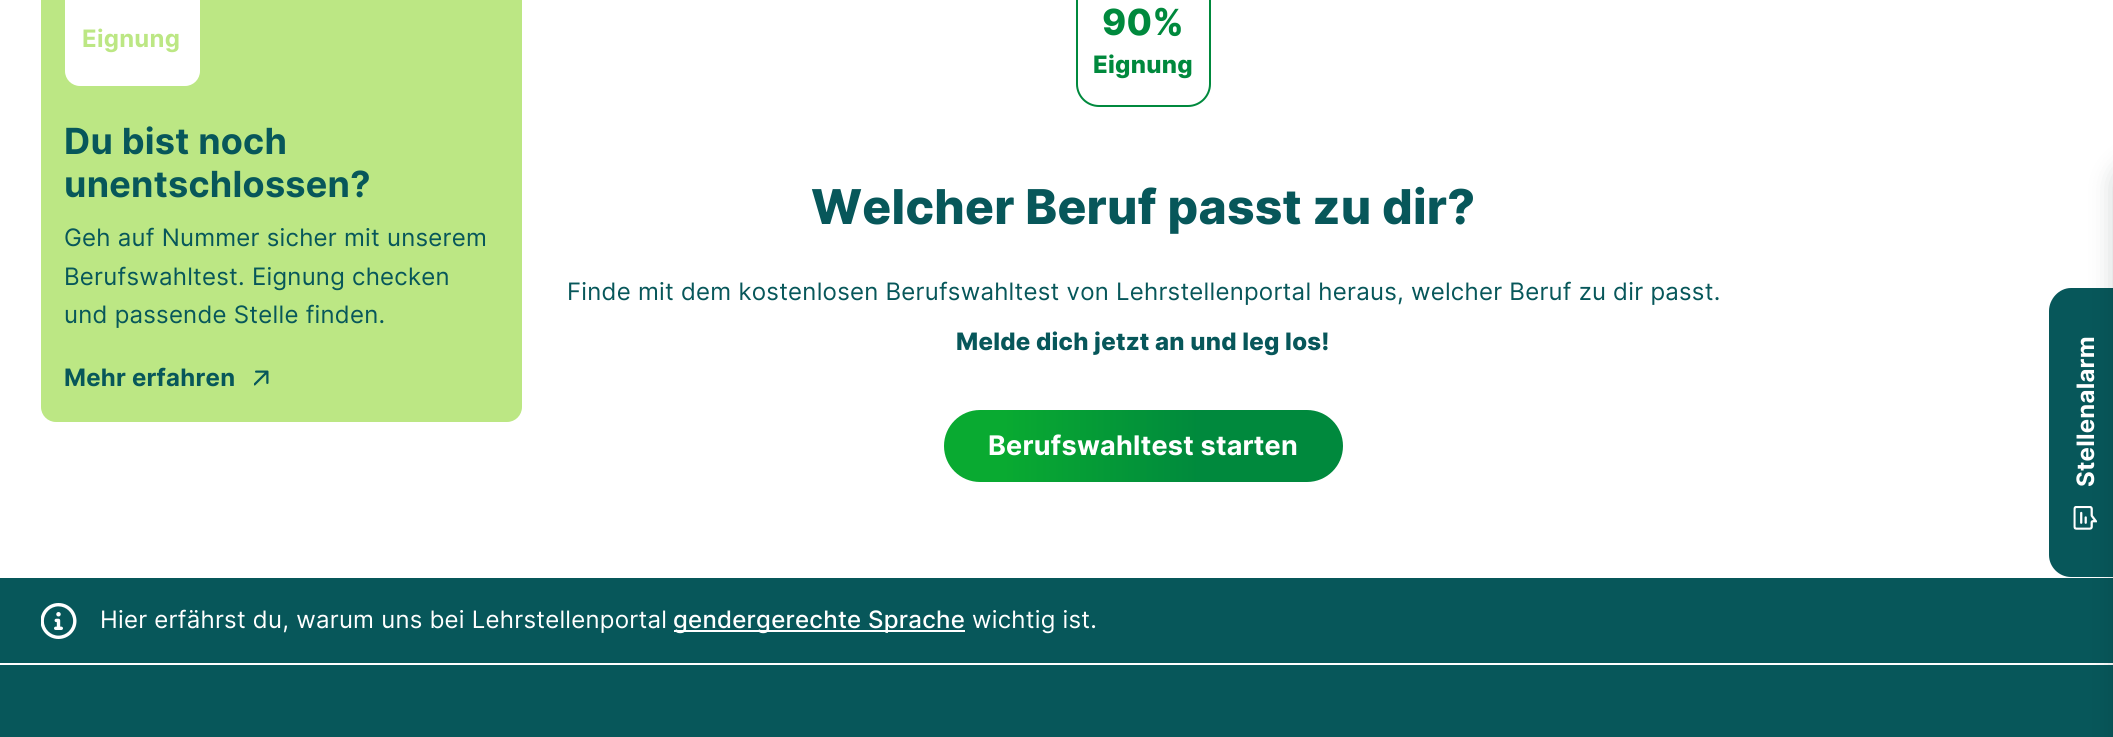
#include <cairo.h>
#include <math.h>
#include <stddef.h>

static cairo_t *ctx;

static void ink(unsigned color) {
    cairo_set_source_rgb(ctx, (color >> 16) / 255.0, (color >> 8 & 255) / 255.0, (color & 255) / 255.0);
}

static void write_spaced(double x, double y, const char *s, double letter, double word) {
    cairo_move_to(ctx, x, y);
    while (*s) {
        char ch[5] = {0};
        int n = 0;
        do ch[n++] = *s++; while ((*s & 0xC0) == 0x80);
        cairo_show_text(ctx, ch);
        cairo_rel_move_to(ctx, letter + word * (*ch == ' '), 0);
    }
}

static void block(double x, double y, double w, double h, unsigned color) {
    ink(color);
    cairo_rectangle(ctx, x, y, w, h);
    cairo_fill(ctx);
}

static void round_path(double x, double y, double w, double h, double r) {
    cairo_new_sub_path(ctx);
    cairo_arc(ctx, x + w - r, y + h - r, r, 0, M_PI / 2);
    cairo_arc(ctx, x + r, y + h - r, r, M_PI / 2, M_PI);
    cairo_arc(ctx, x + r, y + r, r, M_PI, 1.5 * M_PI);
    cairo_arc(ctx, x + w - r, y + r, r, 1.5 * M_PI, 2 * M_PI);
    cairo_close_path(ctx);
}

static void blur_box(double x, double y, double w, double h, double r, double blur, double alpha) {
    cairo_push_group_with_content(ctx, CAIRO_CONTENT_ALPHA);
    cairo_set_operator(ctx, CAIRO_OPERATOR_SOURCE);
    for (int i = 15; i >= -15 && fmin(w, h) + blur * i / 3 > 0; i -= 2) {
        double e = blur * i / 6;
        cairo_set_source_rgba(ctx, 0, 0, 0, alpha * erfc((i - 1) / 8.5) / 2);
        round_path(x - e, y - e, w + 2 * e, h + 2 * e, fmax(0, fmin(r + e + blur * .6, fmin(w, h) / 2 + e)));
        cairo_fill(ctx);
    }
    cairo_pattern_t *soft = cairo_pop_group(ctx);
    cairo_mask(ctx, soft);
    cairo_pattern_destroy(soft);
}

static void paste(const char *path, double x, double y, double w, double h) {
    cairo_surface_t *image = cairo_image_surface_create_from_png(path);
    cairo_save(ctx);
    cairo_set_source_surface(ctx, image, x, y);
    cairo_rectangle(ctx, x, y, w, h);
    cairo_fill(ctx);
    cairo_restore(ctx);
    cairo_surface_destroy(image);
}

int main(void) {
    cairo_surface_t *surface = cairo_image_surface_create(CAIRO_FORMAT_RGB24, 2113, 737);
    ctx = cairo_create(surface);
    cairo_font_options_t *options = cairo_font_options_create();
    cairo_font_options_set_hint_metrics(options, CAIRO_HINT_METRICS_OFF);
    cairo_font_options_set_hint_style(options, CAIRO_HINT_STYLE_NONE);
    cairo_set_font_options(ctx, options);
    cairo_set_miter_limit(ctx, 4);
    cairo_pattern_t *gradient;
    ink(0xffffff);
    cairo_paint(ctx);
    ink(0xbce784);
    round_path(41, -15, 481, 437, 15);
    cairo_fill(ctx);
    ink(0xffffff);
    round_path(65, -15, 135, 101, 15);
    cairo_fill(ctx);
    cairo_select_font_face(ctx, "Inter", CAIRO_FONT_SLANT_NORMAL, CAIRO_FONT_WEIGHT_BOLD);
    cairo_set_font_size(ctx, 24);
    ink(0xbce784);
    write_spaced(82, 47, "Eignung", 0.25, 0);
    cairo_set_font_size(ctx, 36);
    ink(0x07575a);
    write_spaced(64, 154, "Du bist noch", 0.25, 0);
    write_spaced(64, 197, "unentschlossen?", 0.25, 0);
    cairo_select_font_face(ctx, "Inter", CAIRO_FONT_SLANT_NORMAL, CAIRO_FONT_WEIGHT_NORMAL);
    cairo_set_font_size(ctx, 24);
    write_spaced(64, 246, "Geh auf Nummer sicher mit unserem", 0.25, 0);
    write_spaced(64, 285, "Berufswahltest. Eignung checken", 0.25, 0);
    write_spaced(64, 323, "und passende Stelle finden.", 0.25, 0);
    cairo_select_font_face(ctx, "Inter", CAIRO_FONT_SLANT_NORMAL, CAIRO_FONT_WEIGHT_BOLD);
    write_spaced(64, 386, "Mehr erfahren", 0.25, 0);
    paste("pic1.png", 254, 370, 15, 16);
    round_path(1077, -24, 133, 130, 22);
    ink(0x00893d);
    cairo_stroke(ctx);
    cairo_select_font_face(ctx, "Inter ExtraBold", CAIRO_FONT_SLANT_NORMAL, CAIRO_FONT_WEIGHT_NORMAL);
    cairo_set_font_size(ctx, 36);
    write_spaced(1102, 35, "90%", 0.25, 0);
    cairo_set_font_size(ctx, 24);
    write_spaced(1093, 73, "Eignung", 0.25, 0);
    cairo_set_font_size(ctx, 48);
    ink(0x07575a);
    write_spaced(811, 224, "Welcher Beruf passt zu dir?", 0.25, 0);
    cairo_select_font_face(ctx, "Inter", CAIRO_FONT_SLANT_NORMAL, CAIRO_FONT_WEIGHT_NORMAL);
    cairo_set_font_size(ctx, 24);
    write_spaced(567, 300, "Finde mit dem kostenlosen Berufswahltest von Lehrstellenportal heraus, welcher Beruf zu dir passt.", 0.25, 0);
    cairo_select_font_face(ctx, "Inter ExtraBold", CAIRO_FONT_SLANT_NORMAL, CAIRO_FONT_WEIGHT_NORMAL);
    write_spaced(956, 350, "Melde dich jetzt an und leg los!", 0.25, 0);
    gradient = cairo_pattern_create_linear(944, 446, 1343, 446);
    cairo_pattern_add_color_stop_rgba(gradient, 0.15, 0.035, 0.667, 0.192, 1);
    cairo_pattern_add_color_stop_rgba(gradient, 0.65, 0, 0.537, 0.239, 1);
    cairo_set_source(ctx, gradient);
    cairo_pattern_destroy(gradient);
    round_path(944, 410, 399, 72, 36);
    cairo_fill(ctx);
    cairo_select_font_face(ctx, "Inter", CAIRO_FONT_SLANT_NORMAL, CAIRO_FONT_WEIGHT_BOLD);
    cairo_set_font_size(ctx, 27);
    ink(0xffffff);
    write_spaced(988, 455, "Berufswahltest starten", 0.25, 0);
    ink(0x07575a);
    cairo_new_path(ctx);
    cairo_move_to(ctx, 2049, 555);
    cairo_line_to(ctx, 2049, 311);
    cairo_curve_to(ctx, 2049, 299, 2059, 288, 2071, 288);
    cairo_line_to(ctx, 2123, 288);
    cairo_line_to(ctx, 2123, 577);
    cairo_line_to(ctx, 2071, 577);
    cairo_curve_to(ctx, 2059, 577, 2049, 567, 2049, 555);
    cairo_close_path(ctx);
    cairo_fill(ctx);
    paste("pic2.png", 2073, 506, 24, 24);
    block(0, 578, 2113, 159, 0x07575a);
    block(0, 663, 2113, 2, 0xffffff);
    ink(0x001f1d);
    blur_box(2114, 162, 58, 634, 23, 12, 0.2);
    cairo_set_font_size(ctx, 24);
    ink(0xffffff);
    cairo_save(ctx);
    cairo_translate(ctx, 2094, 487);
    cairo_rotate(ctx, -90 * M_PI / 180);
    write_spaced(0, 0, "Stellenalarm", 0.25, 0);
    cairo_restore(ctx);
    paste("pic3.png", 41, 603, 36, 36);
    cairo_select_font_face(ctx, "Inter", CAIRO_FONT_SLANT_NORMAL, CAIRO_FONT_WEIGHT_NORMAL);
    write_spaced(100, 628, "Hier erfährst du, warum uns bei Lehrstellenportal", 0.25, 0);
    block(674, 630, 291, 2, 0xffffff);
    cairo_select_font_face(ctx, "Inter Medium", CAIRO_FONT_SLANT_NORMAL, CAIRO_FONT_WEIGHT_NORMAL);
    write_spaced(673, 628, "gendergerechte Sprache", 0.25, 0);
    cairo_select_font_face(ctx, "Inter", CAIRO_FONT_SLANT_NORMAL, CAIRO_FONT_WEIGHT_NORMAL);
    write_spaced(972, 628, "wichtig ist.", 0.25, 0);
    cairo_surface_write_to_png(surface, "screenshot.png");
    cairo_font_options_destroy(options);
    cairo_destroy(ctx);
    cairo_surface_destroy(surface);
    return 0;
}
